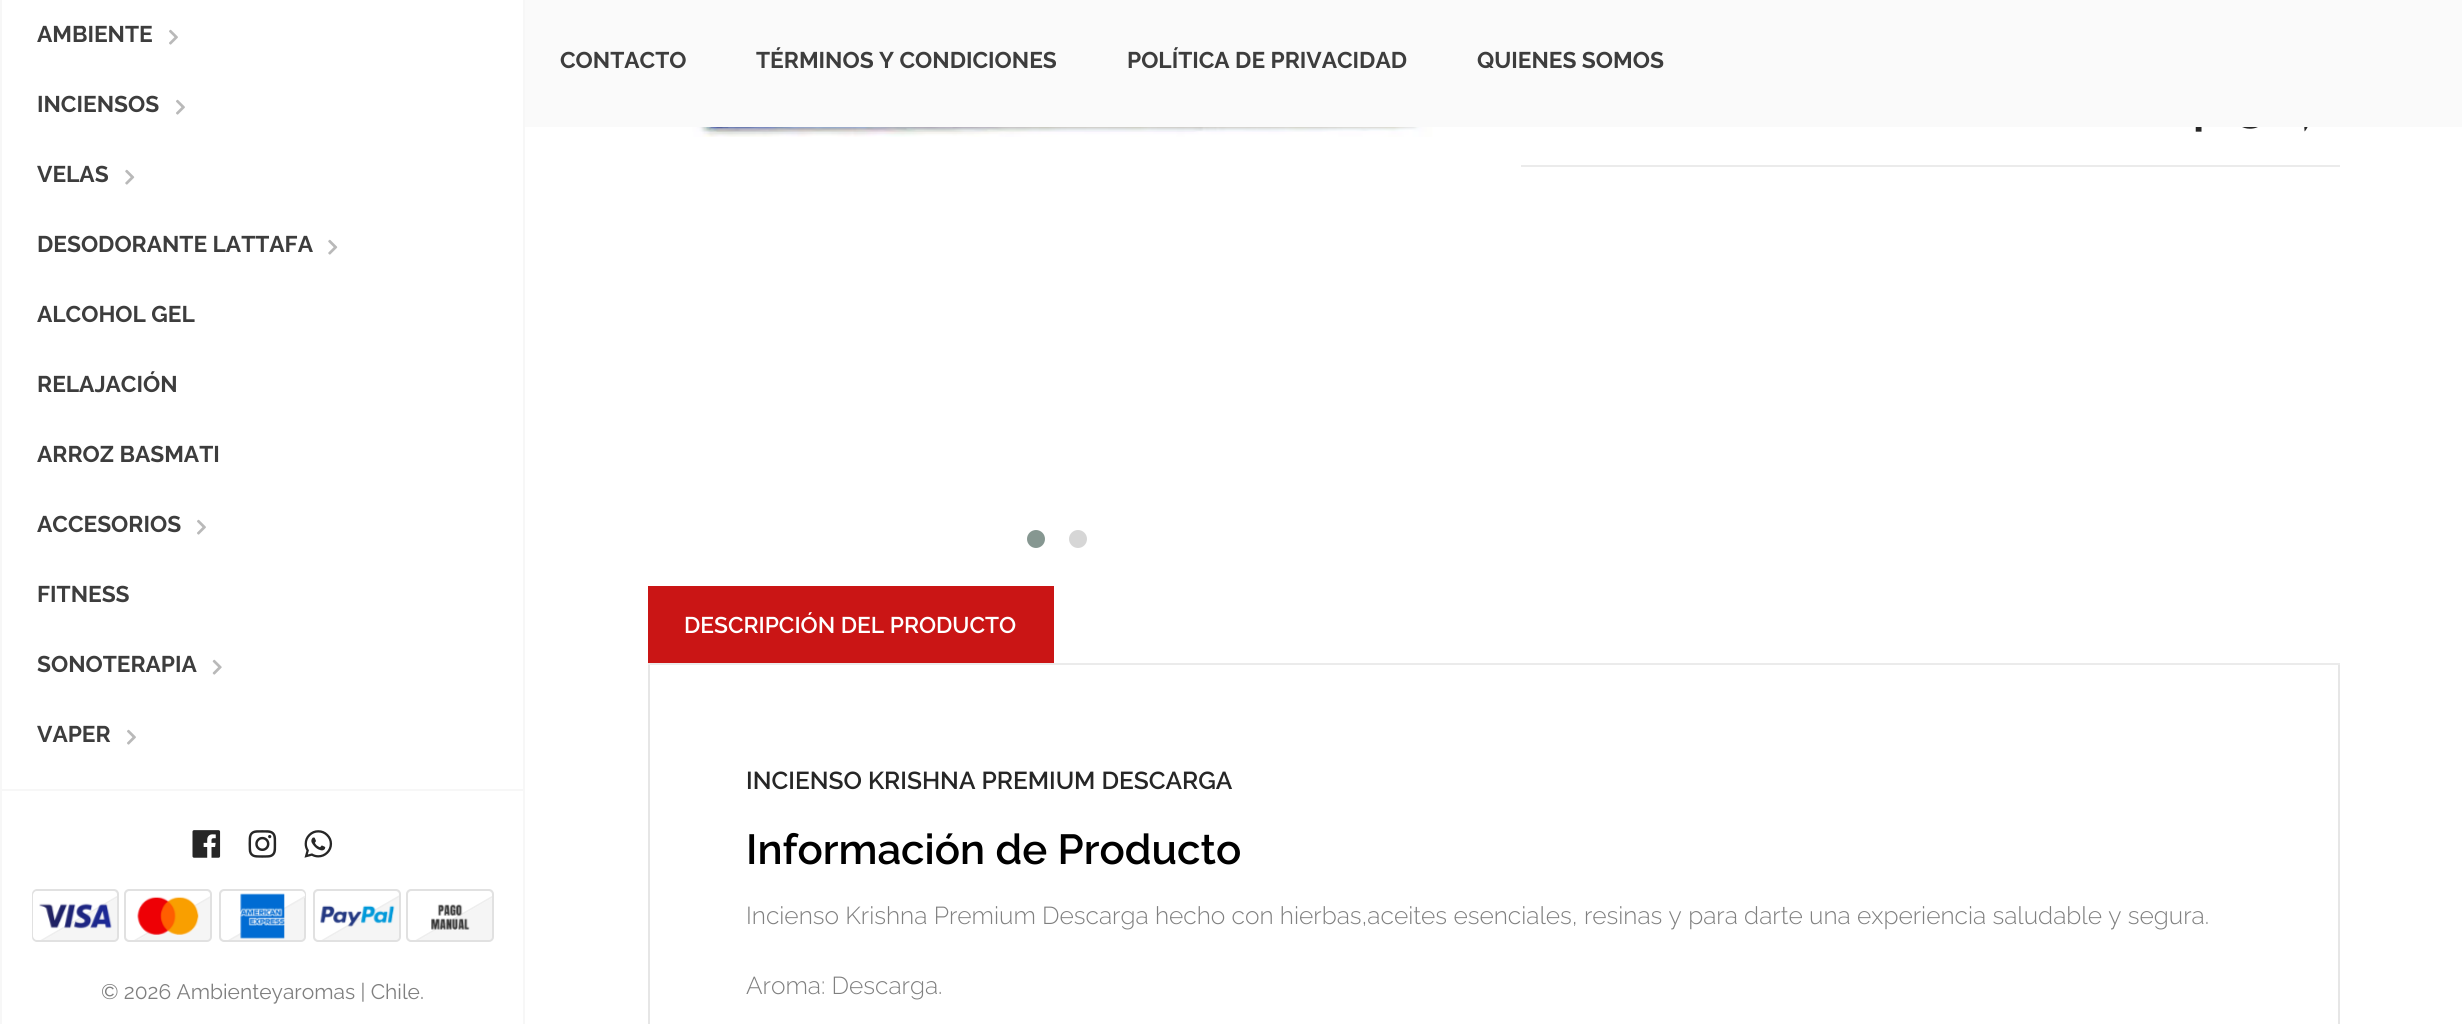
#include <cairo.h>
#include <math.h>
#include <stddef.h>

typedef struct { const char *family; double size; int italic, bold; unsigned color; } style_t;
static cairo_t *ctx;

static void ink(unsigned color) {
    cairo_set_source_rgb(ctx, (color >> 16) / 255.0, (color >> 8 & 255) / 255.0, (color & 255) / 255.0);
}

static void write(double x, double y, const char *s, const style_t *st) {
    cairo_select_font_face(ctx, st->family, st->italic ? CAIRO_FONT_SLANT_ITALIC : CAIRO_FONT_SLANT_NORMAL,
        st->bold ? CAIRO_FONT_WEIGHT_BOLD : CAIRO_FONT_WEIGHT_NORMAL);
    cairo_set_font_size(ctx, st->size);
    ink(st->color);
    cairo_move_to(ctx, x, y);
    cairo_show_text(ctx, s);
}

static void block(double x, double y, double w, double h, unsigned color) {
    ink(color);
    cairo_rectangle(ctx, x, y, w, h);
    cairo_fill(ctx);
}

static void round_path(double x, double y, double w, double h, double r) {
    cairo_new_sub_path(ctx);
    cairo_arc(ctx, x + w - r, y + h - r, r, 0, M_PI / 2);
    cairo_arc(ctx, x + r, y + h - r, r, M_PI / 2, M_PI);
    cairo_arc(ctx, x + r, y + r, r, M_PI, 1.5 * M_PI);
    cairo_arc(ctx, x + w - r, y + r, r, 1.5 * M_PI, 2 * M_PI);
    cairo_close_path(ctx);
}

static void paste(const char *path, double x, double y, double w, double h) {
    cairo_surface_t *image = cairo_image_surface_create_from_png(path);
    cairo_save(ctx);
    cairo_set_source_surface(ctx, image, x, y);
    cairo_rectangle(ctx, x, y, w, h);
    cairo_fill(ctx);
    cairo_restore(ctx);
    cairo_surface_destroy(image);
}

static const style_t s1 = {"Raleway", 22.75, 0, 1, 0x3d3d3d};
static const style_t s2 = {"Raleway", 21, 0, 0, 0x808080};
static const style_t s3 = {"Raleway SemiBold", 22.75, 0, 0, 0xffffff};
static const style_t s4 = {"Raleway SemiBold", 24.5, 0, 0, 0x262626};
static const style_t s5 = {"Raleway SemiBold", 42, 0, 0, 0x000000};
static const style_t s6 = {"Raleway Light", 24.5, 0, 0, 0x808080};

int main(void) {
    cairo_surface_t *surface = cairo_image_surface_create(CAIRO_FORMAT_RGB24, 2462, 1024);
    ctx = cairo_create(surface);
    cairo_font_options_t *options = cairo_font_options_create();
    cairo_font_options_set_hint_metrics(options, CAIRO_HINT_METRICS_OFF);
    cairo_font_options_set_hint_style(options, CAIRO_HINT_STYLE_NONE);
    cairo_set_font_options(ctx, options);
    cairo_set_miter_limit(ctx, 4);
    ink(0xffffff);
    cairo_paint(ctx);
    cairo_rectangle(ctx, 1, -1, 523, 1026);
    ink(0xf7f7f7);
    cairo_stroke(ctx);
    write(37, 42, "AMBIENTE", &s1);
    paste("pic1.png", 169, 29, 9, 16);
    write(37, 112, "INCIENSOS", &s1);
    paste("pic1.png", 176, 99, 9, 16);
    write(37, 182, "VELAS", &s1);
    paste("pic2.png", 125, 169, 10, 16);
    write(37, 252, "DESODORANTE LATTAFA", &s1);
    paste("pic2.png", 328, 239, 10, 16);
    write(37, 322, "ALCOHOL GEL", &s1);
    write(37, 392, "RELAJACIÓN", &s1);
    write(37, 462, "ARROZ BASMATI", &s1);
    write(37, 532, "ACCESORIOS", &s1);
    paste("pic1.png", 197, 519, 9, 16);
    write(37, 602, "FITNESS", &s1);
    write(37, 672, "SONOTERAPIA", &s1);
    paste("pic3.png", 212, 659, 10, 16);
    write(37, 742, "VAPER", &s1);
    paste("pic1.png", 127, 729, 9, 16);
    cairo_rectangle(ctx, 1, 790, 523, 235);
    ink(0xf7f7f7);
    cairo_stroke(ctx);
    paste("pic4.png", 192, 830, 29, 28);
    paste("pic5.png", 248, 830, 29, 28);
    paste("pic6.png", 304, 830, 29, 28);
    ink(0xf5f5f5);
    round_path(33, 890, 85, 51, 4);
    cairo_fill_preserve(ctx);
    ink(0xe1e1e1);
    cairo_stroke(ctx);
    ink(0xffffff);
    cairo_new_path(ctx);
    cairo_move_to(ctx, 37, 891);
    cairo_line_to(ctx, 113, 891);
    cairo_curve_to(ctx, 115, 891, 117, 893, 117, 895);
    cairo_line_to(ctx, 117, 898);
    cairo_line_to(ctx, 44, 940);
    cairo_line_to(ctx, 37, 940);
    cairo_curve_to(ctx, 35, 940, 33, 938, 33, 936);
    cairo_line_to(ctx, 33, 895);
    cairo_curve_to(ctx, 33, 893, 35, 891, 37, 891);
    cairo_close_path(ctx);
    cairo_fill(ctx);
    cairo_save(ctx);
    round_path(33, 891, 84, 49, 4);
    cairo_clip(ctx);
    cairo_new_path(ctx);
    cairo_move_to(ctx, 64.5, 727);
    cairo_line_to(ctx, 151.5, 877);
    cairo_line_to(ctx, 1.5, 963.5);
    cairo_line_to(ctx, -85.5, 813.5);
    cairo_close_path(ctx);
    ink(0xeeeeee);
    cairo_set_line_width(ctx, 1.7);
    cairo_stroke(ctx);
    cairo_restore(ctx);
    paste("pic7.png", 39, 903, 73, 26);
    ink(0xf5f5f5);
    round_path(125, 890, 86, 51, 4);
    cairo_fill_preserve(ctx);
    ink(0xe1e1e1);
    cairo_stroke(ctx);
    ink(0xffffff);
    cairo_new_path(ctx);
    cairo_move_to(ctx, 130, 891);
    cairo_line_to(ctx, 206, 891);
    cairo_curve_to(ctx, 208, 891, 210, 893, 210, 895);
    cairo_line_to(ctx, 210, 898);
    cairo_line_to(ctx, 138, 940);
    cairo_line_to(ctx, 130, 940);
    cairo_curve_to(ctx, 128, 940, 126, 938, 126, 936);
    cairo_line_to(ctx, 126, 895);
    cairo_curve_to(ctx, 126, 893, 128, 891, 130, 891);
    cairo_close_path(ctx);
    cairo_fill(ctx);
    cairo_save(ctx);
    round_path(126, 891, 84, 49, 4);
    cairo_clip(ctx);
    cairo_new_path(ctx);
    cairo_move_to(ctx, 158.5, 727);
    cairo_line_to(ctx, 245, 877);
    cairo_line_to(ctx, 95, 963.5);
    cairo_line_to(ctx, 8.5, 813.5);
    cairo_close_path(ctx);
    ink(0xeeeeee);
    cairo_set_line_width(ctx, 1.7);
    cairo_stroke(ctx);
    cairo_restore(ctx);
    paste("pic8.png", 137, 896, 62, 39);
    ink(0xf5f5f5);
    round_path(220, 890, 85, 51, 4);
    cairo_fill_preserve(ctx);
    ink(0xe1e1e1);
    cairo_stroke(ctx);
    ink(0xffffff);
    cairo_new_path(ctx);
    cairo_move_to(ctx, 225, 891);
    cairo_line_to(ctx, 301, 891);
    cairo_curve_to(ctx, 303, 891, 305, 893, 305, 895);
    cairo_line_to(ctx, 305, 897);
    cairo_line_to(ctx, 231, 940);
    cairo_line_to(ctx, 225, 940);
    cairo_curve_to(ctx, 223, 940, 221, 938, 221, 936);
    cairo_line_to(ctx, 221, 895);
    cairo_curve_to(ctx, 221, 893, 223, 891, 225, 891);
    cairo_close_path(ctx);
    cairo_fill(ctx);
    cairo_save(ctx);
    round_path(221, 891, 84, 49, 4);
    cairo_clip(ctx);
    cairo_new_path(ctx);
    cairo_move_to(ctx, 252, 727);
    cairo_line_to(ctx, 339, 877);
    cairo_line_to(ctx, 189, 963.5);
    cairo_line_to(ctx, 102, 813.5);
    cairo_close_path(ctx);
    ink(0xeeeeee);
    cairo_set_line_width(ctx, 1.7);
    cairo_stroke(ctx);
    cairo_restore(ctx);
    paste("pic9.png", 240, 893, 45, 46);
    ink(0xf5f5f5);
    round_path(314, 890, 86, 51, 4);
    cairo_fill_preserve(ctx);
    ink(0xe1e1e1);
    cairo_stroke(ctx);
    ink(0xffffff);
    cairo_new_path(ctx);
    cairo_move_to(ctx, 319, 891);
    cairo_line_to(ctx, 395, 891);
    cairo_curve_to(ctx, 397, 891, 399, 893, 399, 895);
    cairo_line_to(ctx, 399, 897);
    cairo_line_to(ctx, 325, 940);
    cairo_line_to(ctx, 319, 940);
    cairo_curve_to(ctx, 317, 940, 315, 938, 315, 936);
    cairo_line_to(ctx, 315, 895);
    cairo_curve_to(ctx, 315, 893, 317, 891, 319, 891);
    cairo_close_path(ctx);
    cairo_fill(ctx);
    cairo_save(ctx);
    round_path(315, 891, 84, 49, 4);
    cairo_clip(ctx);
    cairo_new_path(ctx);
    cairo_move_to(ctx, 346, 727);
    cairo_line_to(ctx, 432.5, 877);
    cairo_line_to(ctx, 282.5, 963.5);
    cairo_line_to(ctx, 196, 813.5);
    cairo_close_path(ctx);
    ink(0xeeeeee);
    cairo_set_line_width(ctx, 1.7);
    cairo_stroke(ctx);
    cairo_restore(ctx);
    paste("pic10.png", 320, 905, 75, 22);
    ink(0xf5f5f5);
    round_path(407, 890, 86, 51, 4);
    cairo_fill_preserve(ctx);
    ink(0xe1e1e1);
    cairo_stroke(ctx);
    ink(0xffffff);
    cairo_new_path(ctx);
    cairo_move_to(ctx, 412, 891);
    cairo_line_to(ctx, 488, 891);
    cairo_curve_to(ctx, 490, 891, 492, 893, 492, 895);
    cairo_line_to(ctx, 492, 898);
    cairo_line_to(ctx, 419, 940);
    cairo_line_to(ctx, 412, 940);
    cairo_curve_to(ctx, 410, 940, 408, 938, 408, 936);
    cairo_line_to(ctx, 408, 895);
    cairo_curve_to(ctx, 408, 893, 410, 891, 412, 891);
    cairo_close_path(ctx);
    cairo_fill(ctx);
    cairo_save(ctx);
    round_path(408, 891, 84, 49, 4);
    cairo_clip(ctx);
    cairo_new_path(ctx);
    cairo_move_to(ctx, 439.5, 727);
    cairo_line_to(ctx, 526.5, 877);
    cairo_line_to(ctx, 376.5, 963.5);
    cairo_line_to(ctx, 289.5, 813.5);
    cairo_close_path(ctx);
    ink(0xeeeeee);
    cairo_set_line_width(ctx, 1.7);
    cairo_stroke(ctx);
    cairo_restore(ctx);
    paste("pic11.png", 431, 904, 39, 26);
    write(101, 999, "© 2026 Ambienteyaromas | Chile.", &s2);
    block(525, 0, 1937, 127, 0xfafafa);
    write(560, 68, "CONTACTO", &s1);
    write(756, 68, "TÉRMINOS Y CONDICIONES", &s1);
    write(1127, 68, "POLÍTICA DE PRIVACIDAD", &s1);
    write(1477, 68, "QUIENES SOMOS", &s1);
    paste("pic12.png", 692, 127, 741, 10);
    ink(0x869791);
    cairo_arc(ctx, 1036, 539, 9, 0, 2 * M_PI);
    cairo_fill(ctx);
    ink(0xd6d6d6);
    cairo_arc(ctx, 1078, 539, 9, 0, 2 * M_PI);
    cairo_fill(ctx);
    block(1521, 165, 819, 2, 0xebebeb);
    paste("pic13.png", 2195, 127, 7, 5);
    paste("pic14.png", 2242, 127, 16, 2);
    paste("pic15.png", 2304, 127, 4, 5);
    block(648, 586, 406, 77, 0xca1515);
    write(684, 633, "DESCRIPCIÓN DEL PRODUCTO", &s3);
    block(648, 663, 1692, 2, 0xebebeb);
    block(2338, 665, 2, 359, 0xe6e6e6);
    block(648, 665, 2, 359, 0xe6e6e6);
    write(746, 789, "INCIENSO KRISHNA PREMIUM DESCARGA", &s4);
    write(746, 864, "Información de Producto", &s5);
    write(746, 924, "Incienso Krishna Premium Descarga hecho con hierbas,aceites esenciales, resinas y para darte una experiencia saludable y segura.", &s6);
    write(746, 994, "Aroma: Descarga.", &s6);
    cairo_surface_write_to_png(surface, "screenshot.png");
    cairo_font_options_destroy(options);
    cairo_destroy(ctx);
    cairo_surface_destroy(surface);
    return 0;
}
